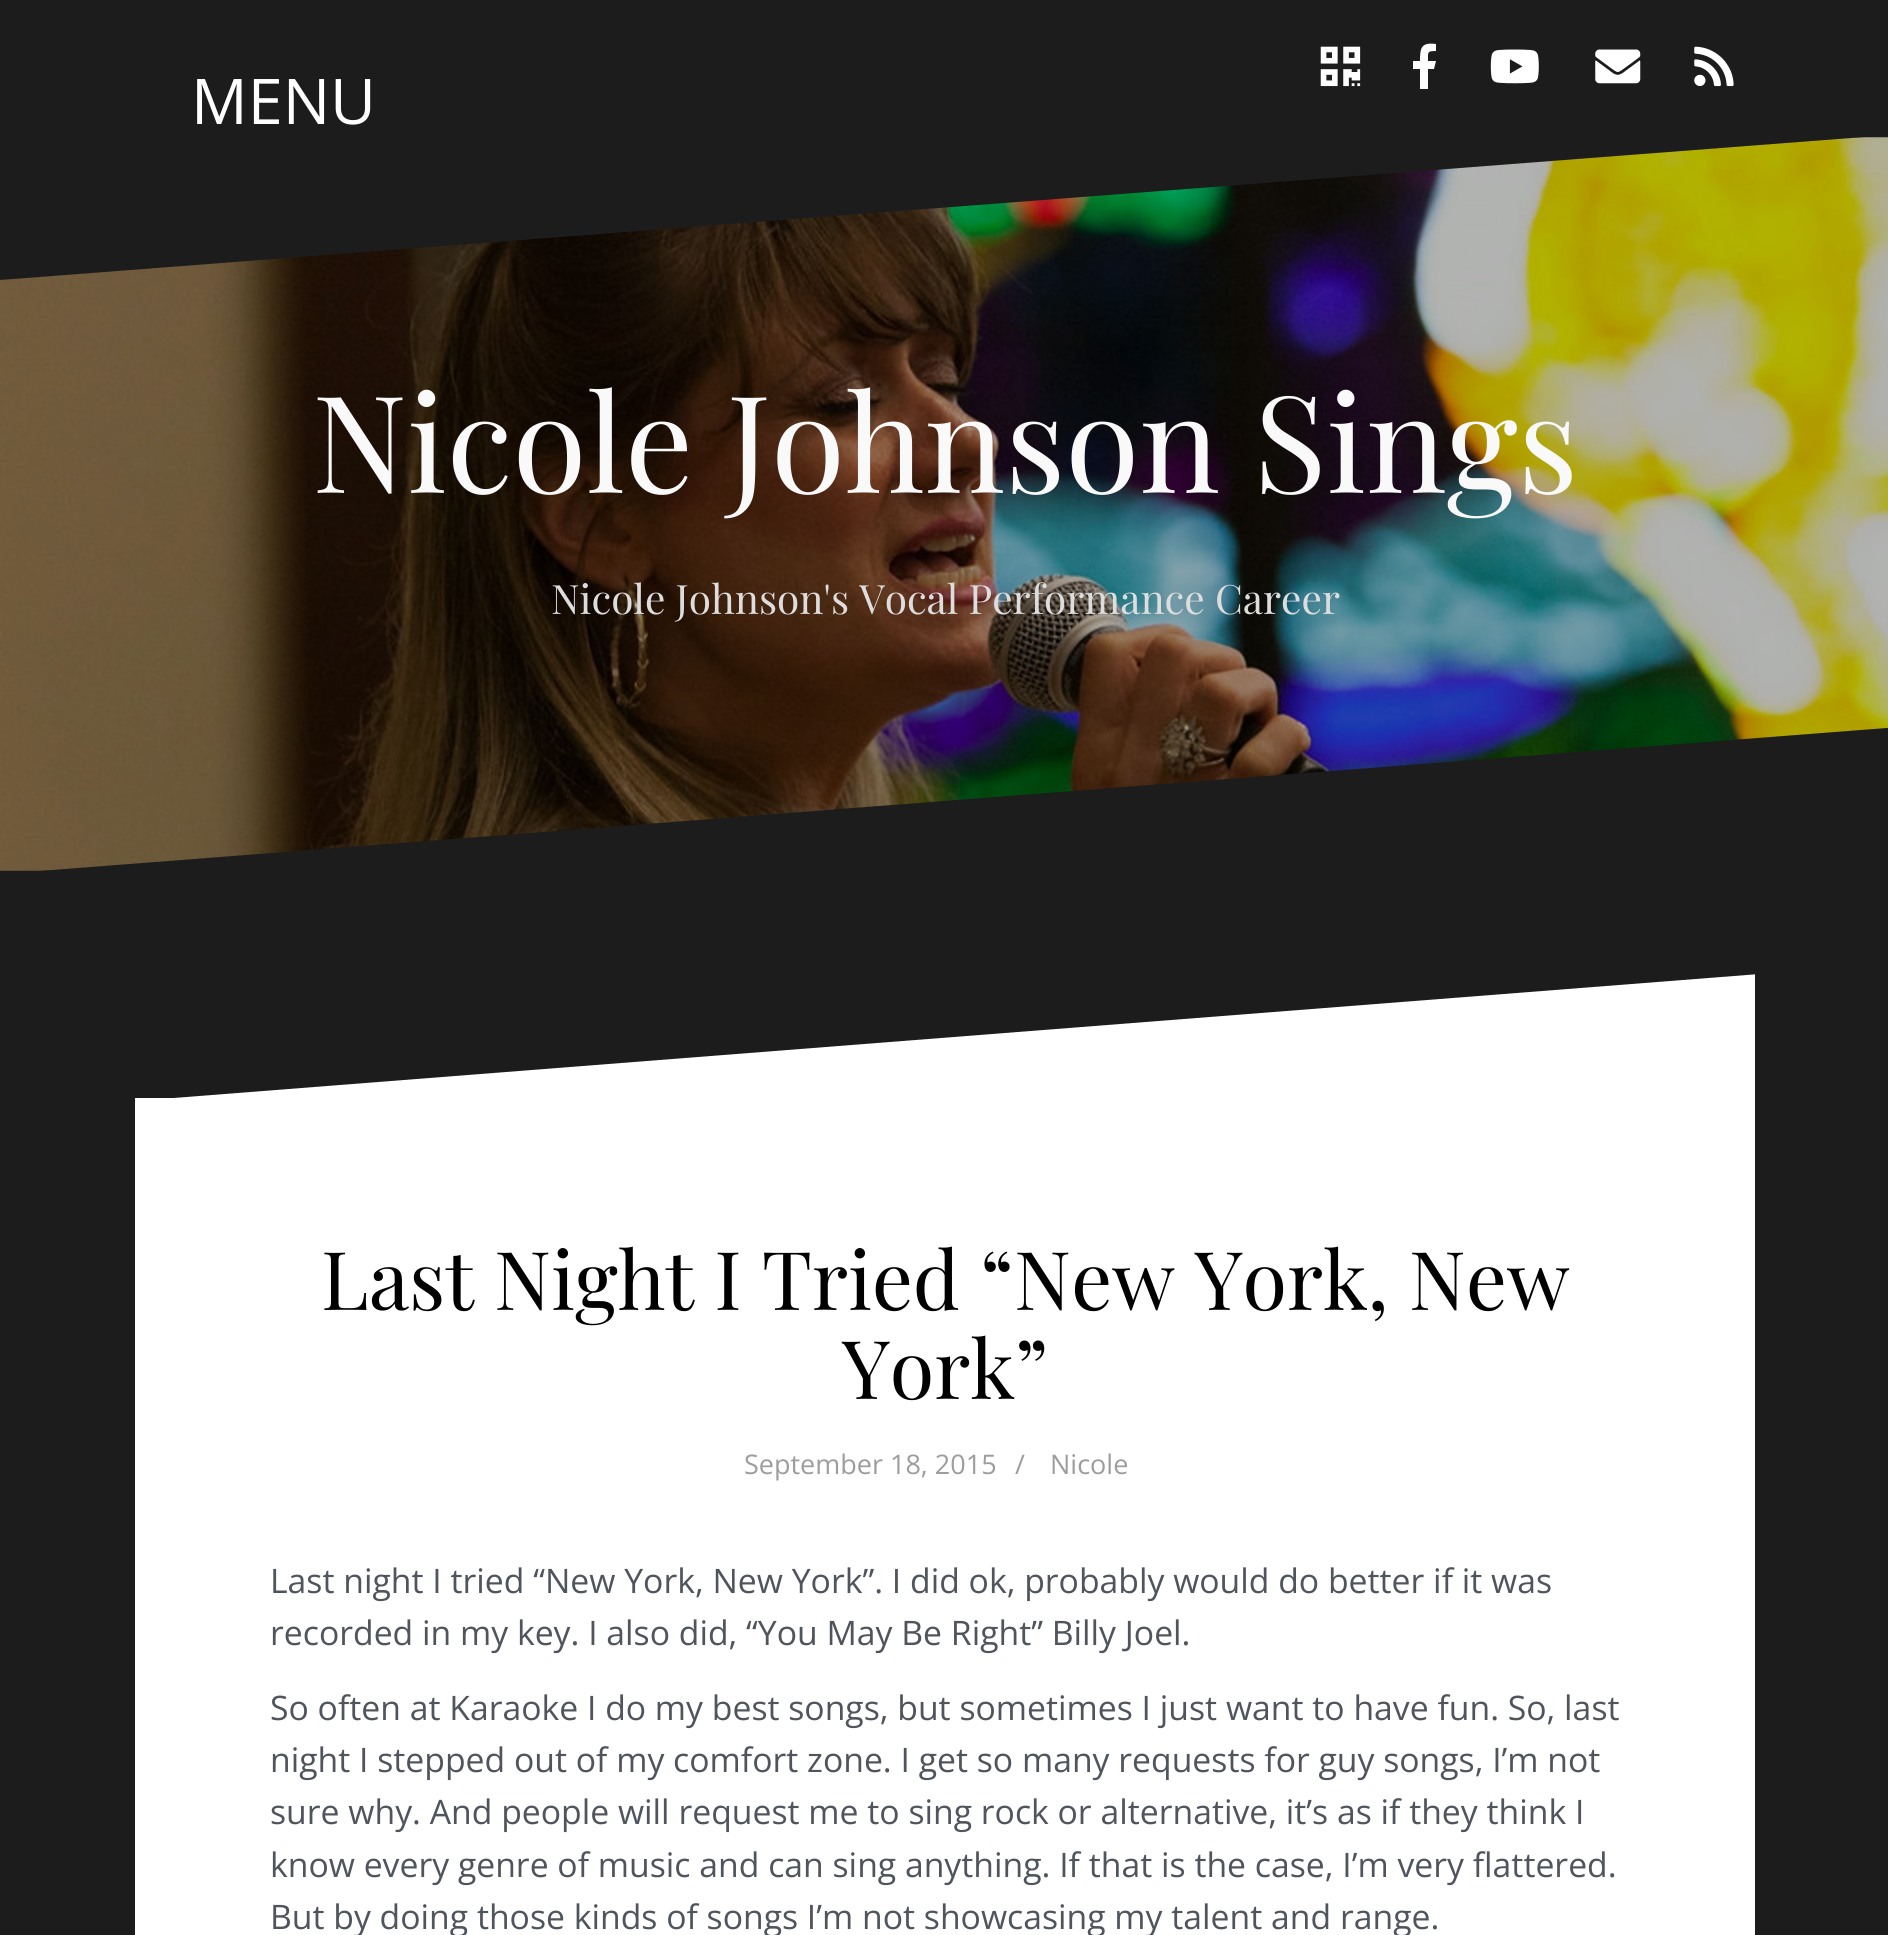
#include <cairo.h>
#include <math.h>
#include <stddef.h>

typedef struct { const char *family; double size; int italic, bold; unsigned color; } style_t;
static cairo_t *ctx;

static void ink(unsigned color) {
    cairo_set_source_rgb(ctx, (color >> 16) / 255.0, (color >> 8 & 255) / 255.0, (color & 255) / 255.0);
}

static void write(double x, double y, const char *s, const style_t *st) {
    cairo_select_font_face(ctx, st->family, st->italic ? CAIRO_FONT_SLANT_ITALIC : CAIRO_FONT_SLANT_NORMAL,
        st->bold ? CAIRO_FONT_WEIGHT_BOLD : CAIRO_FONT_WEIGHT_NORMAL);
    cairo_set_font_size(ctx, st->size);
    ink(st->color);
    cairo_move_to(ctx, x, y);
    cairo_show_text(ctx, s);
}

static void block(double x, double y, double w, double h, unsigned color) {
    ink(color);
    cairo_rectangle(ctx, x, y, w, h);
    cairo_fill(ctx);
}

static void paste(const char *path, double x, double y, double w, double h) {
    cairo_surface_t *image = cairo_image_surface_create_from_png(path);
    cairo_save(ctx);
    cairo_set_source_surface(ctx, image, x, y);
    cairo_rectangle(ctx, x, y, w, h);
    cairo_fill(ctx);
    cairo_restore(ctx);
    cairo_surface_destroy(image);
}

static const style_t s1 = {"Open Sans", 63, 0, 0, 0xffffff};
static const style_t s2 = {"Playfair Display", 135, 0, 0, 0xf9f9f9};
static const style_t s3 = {"Playfair Display", 40.5, 0, 0, 0xdddddd};
static const style_t s4 = {"Playfair Display", 81, 0, 0, 0x000000};
static const style_t s5 = {"Open Sans", 27, 0, 0, 0x9d9d9d};
static const style_t s6 = {"Open Sans", 33.75, 0, 0, 0x50545c};

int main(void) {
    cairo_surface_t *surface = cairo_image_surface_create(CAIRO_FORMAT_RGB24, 1888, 1935);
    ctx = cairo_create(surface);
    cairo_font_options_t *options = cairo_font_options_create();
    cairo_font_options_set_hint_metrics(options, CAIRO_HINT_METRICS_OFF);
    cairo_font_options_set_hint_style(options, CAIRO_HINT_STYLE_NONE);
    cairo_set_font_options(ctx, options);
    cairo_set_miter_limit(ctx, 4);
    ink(0x1c1c1c);
    cairo_paint(ctx);
    paste("pic1.png", 1320, 46, 41, 41);
    ink(0xffffff);
    cairo_new_path(ctx);
    cairo_move_to(ctx, 1420, 89);
    cairo_line_to(ctx, 1420, 69);
    cairo_line_to(ctx, 1413, 69);
    cairo_line_to(ctx, 1413, 61);
    cairo_line_to(ctx, 1420, 61);
    cairo_curve_to(ctx, 1420, 48, 1421, 42, 1436, 44);
    cairo_line_to(ctx, 1436, 51);
    cairo_curve_to(ctx, 1427, 51, 1428, 52, 1428, 61);
    cairo_line_to(ctx, 1436, 61);
    cairo_line_to(ctx, 1434, 69);
    cairo_line_to(ctx, 1428, 69);
    cairo_line_to(ctx, 1428, 89);
    cairo_close_path(ctx);
    cairo_fill(ctx);
    paste("pic2.png", 1490, 49, 49, 35);
    paste("pic3.png", 1595, 49, 46, 35);
    paste("pic4.png", 1694, 46, 40, 41);
    write(191, 124, "MENU", &s1);
    paste("pic5.png", 0, 137, 1888, 734);
    ink(0x1c1c1c);
    cairo_new_path(ctx);
    cairo_move_to(ctx, 0, 280);
    cairo_line_to(ctx, 0, 135);
    cairo_line_to(ctx, 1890, 135);
    cairo_fill(ctx);
    write(312, 493, "Nicole Johnson Sings", &s2);
    write(551, 614, "Nicole Johnson's Vocal Performance Career", &s3);
    ink(0x1c1c1c);
    cairo_new_path(ctx);
    cairo_move_to(ctx, 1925, 725);
    cairo_line_to(ctx, 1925, 874);
    cairo_line_to(ctx, 0, 874);
    cairo_fill(ctx);
    block(135, 1098, 1620, 837, 0xffffff);
    cairo_save(ctx);
    cairo_rectangle(ctx, 135, 972, 1620, 128);
    cairo_clip(ctx);
    cairo_new_path(ctx);
    cairo_move_to(ctx, 1785, 972);
    cairo_line_to(ctx, 1785, 1101);
    cairo_line_to(ctx, 135, 1101);
    cairo_fill(ctx);
    cairo_restore(ctx);
    write(321, 1310, "Last Night I Tried “New York, New", &s4);
    write(842, 1399, "York”", &s4);
    write(744, 1474, "September 18, 2015", &s5);
    write(1015, 1474, "/", &s5);
    write(1050, 1474, "Nicole", &s5);
    write(270, 1593, "Last night I tried “New York, New York”. I did ok, probably would do better if it was", &s6);
    write(270, 1645, "recorded in my key. I also did, “You May Be Right” Billy Joel.", &s6);
    write(270, 1720, "So often at Karaoke I do my best songs, but sometimes I just want to have fun. So, last", &s6);
    write(270, 1772, "night I stepped out of my comfort zone. I get so many requests for guy songs, I’m not", &s6);
    write(270, 1824, "sure why. And people will request me to sing rock or alternative, it’s as if they think I", &s6);
    write(270, 1877, "know every genre of music and can sing anything. If that is the case, I’m very flattered.", &s6);
    write(270, 1929, "But by doing those kinds of songs I’m not showcasing my talent and range.", &s6);
    cairo_surface_write_to_png(surface, "screenshot.png");
    cairo_font_options_destroy(options);
    cairo_destroy(ctx);
    cairo_surface_destroy(surface);
    return 0;
}
